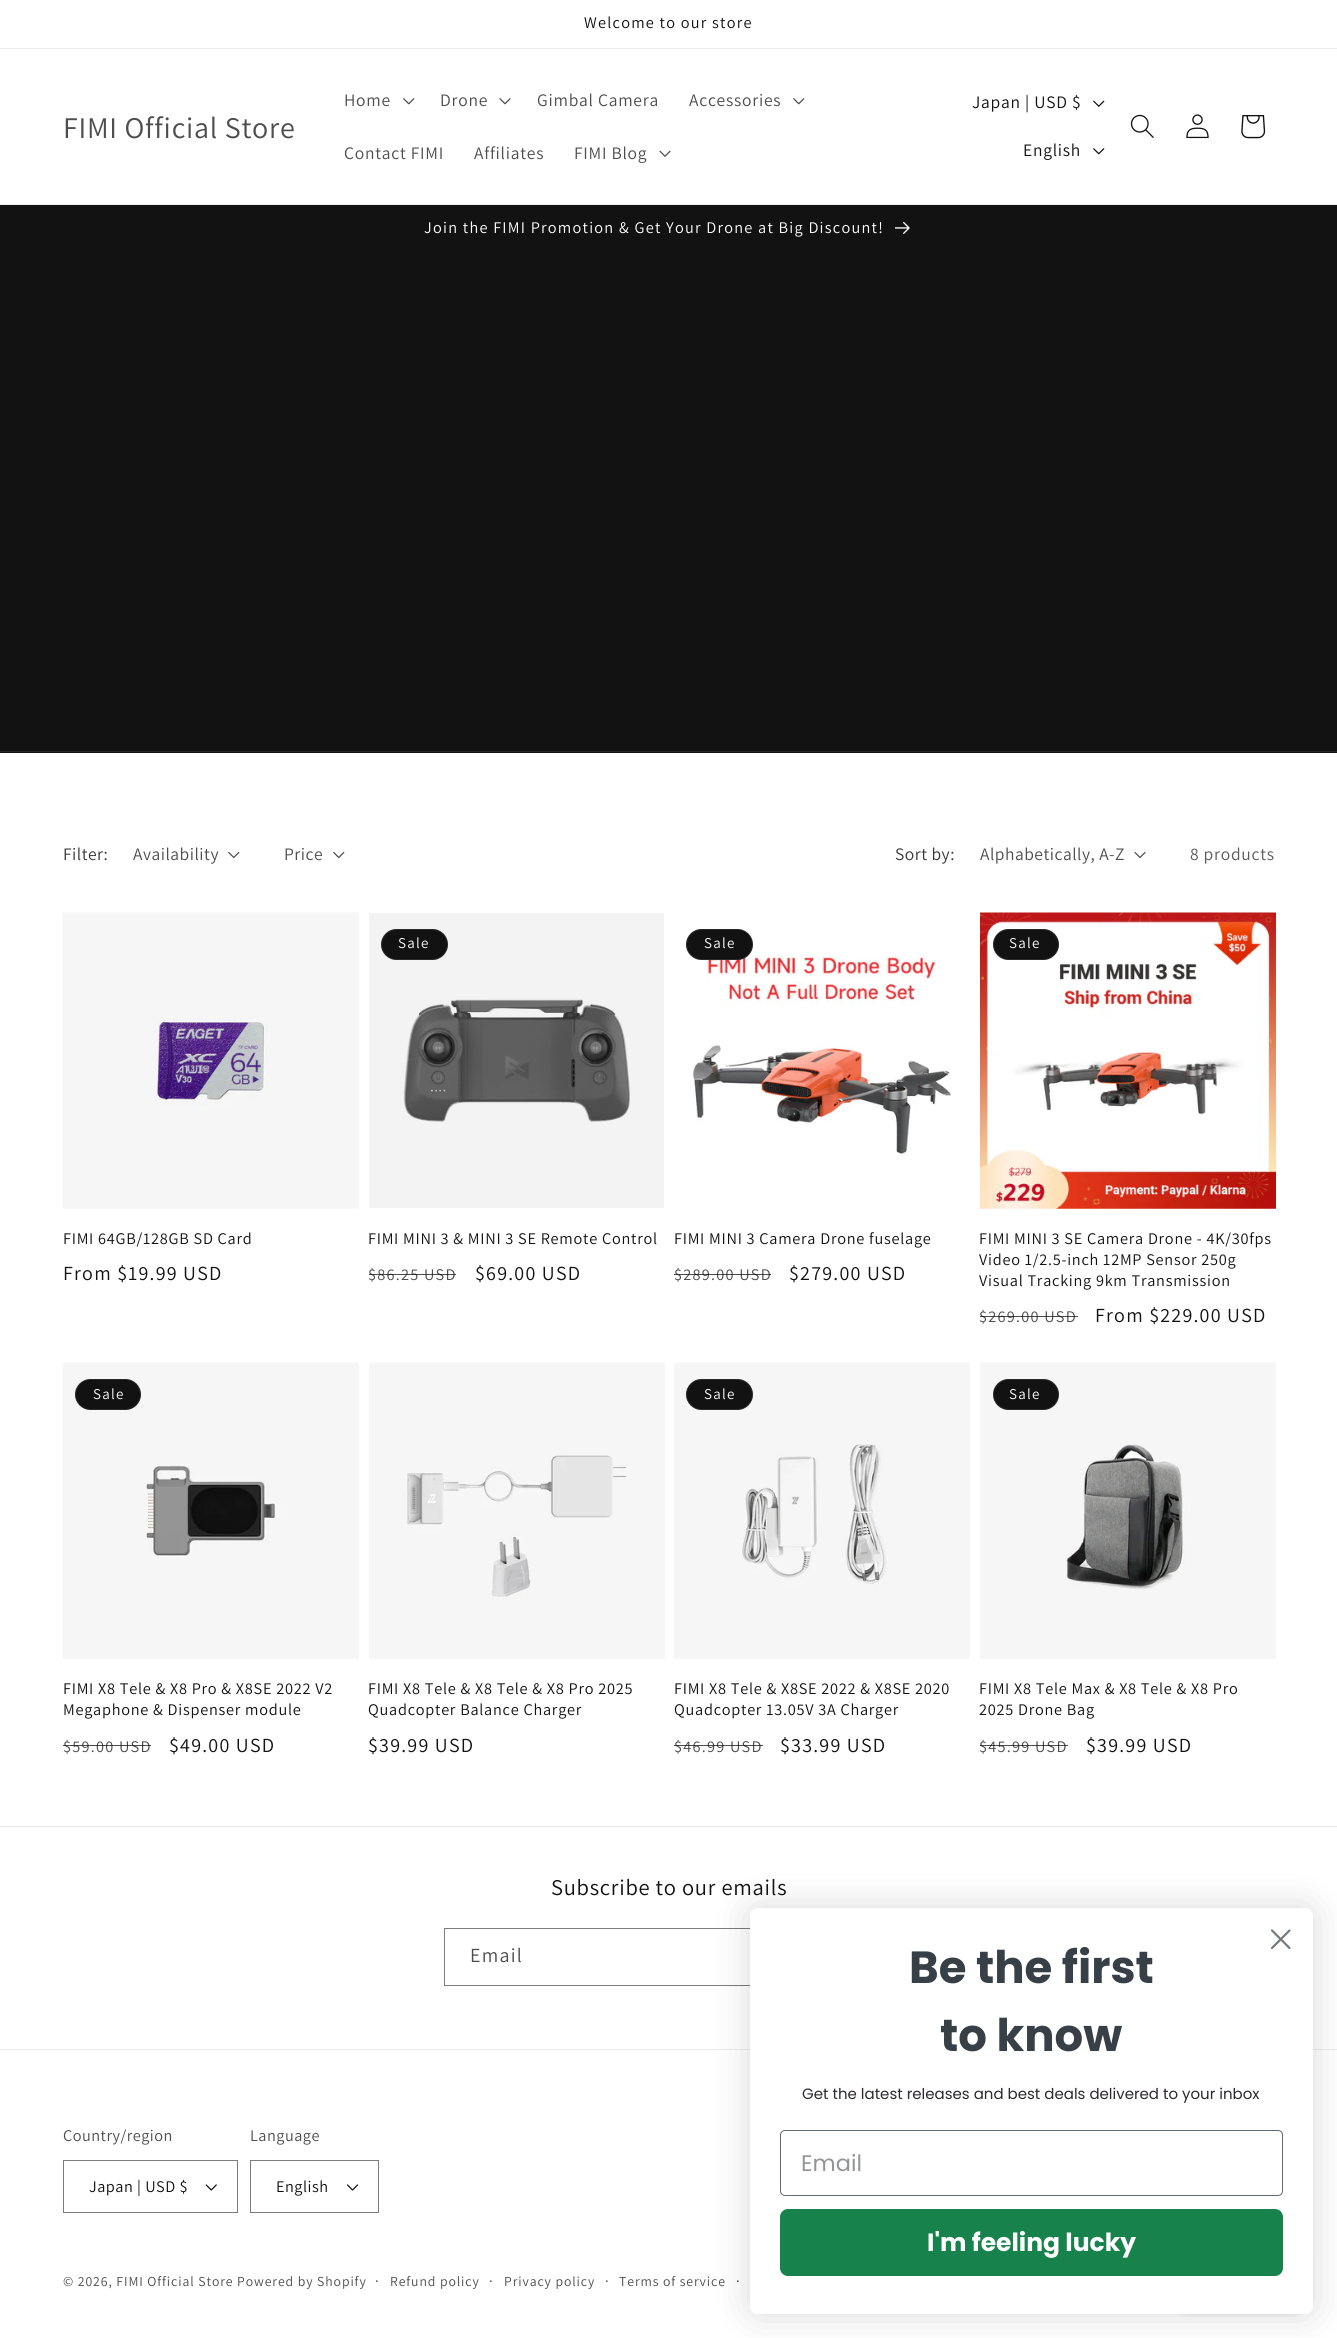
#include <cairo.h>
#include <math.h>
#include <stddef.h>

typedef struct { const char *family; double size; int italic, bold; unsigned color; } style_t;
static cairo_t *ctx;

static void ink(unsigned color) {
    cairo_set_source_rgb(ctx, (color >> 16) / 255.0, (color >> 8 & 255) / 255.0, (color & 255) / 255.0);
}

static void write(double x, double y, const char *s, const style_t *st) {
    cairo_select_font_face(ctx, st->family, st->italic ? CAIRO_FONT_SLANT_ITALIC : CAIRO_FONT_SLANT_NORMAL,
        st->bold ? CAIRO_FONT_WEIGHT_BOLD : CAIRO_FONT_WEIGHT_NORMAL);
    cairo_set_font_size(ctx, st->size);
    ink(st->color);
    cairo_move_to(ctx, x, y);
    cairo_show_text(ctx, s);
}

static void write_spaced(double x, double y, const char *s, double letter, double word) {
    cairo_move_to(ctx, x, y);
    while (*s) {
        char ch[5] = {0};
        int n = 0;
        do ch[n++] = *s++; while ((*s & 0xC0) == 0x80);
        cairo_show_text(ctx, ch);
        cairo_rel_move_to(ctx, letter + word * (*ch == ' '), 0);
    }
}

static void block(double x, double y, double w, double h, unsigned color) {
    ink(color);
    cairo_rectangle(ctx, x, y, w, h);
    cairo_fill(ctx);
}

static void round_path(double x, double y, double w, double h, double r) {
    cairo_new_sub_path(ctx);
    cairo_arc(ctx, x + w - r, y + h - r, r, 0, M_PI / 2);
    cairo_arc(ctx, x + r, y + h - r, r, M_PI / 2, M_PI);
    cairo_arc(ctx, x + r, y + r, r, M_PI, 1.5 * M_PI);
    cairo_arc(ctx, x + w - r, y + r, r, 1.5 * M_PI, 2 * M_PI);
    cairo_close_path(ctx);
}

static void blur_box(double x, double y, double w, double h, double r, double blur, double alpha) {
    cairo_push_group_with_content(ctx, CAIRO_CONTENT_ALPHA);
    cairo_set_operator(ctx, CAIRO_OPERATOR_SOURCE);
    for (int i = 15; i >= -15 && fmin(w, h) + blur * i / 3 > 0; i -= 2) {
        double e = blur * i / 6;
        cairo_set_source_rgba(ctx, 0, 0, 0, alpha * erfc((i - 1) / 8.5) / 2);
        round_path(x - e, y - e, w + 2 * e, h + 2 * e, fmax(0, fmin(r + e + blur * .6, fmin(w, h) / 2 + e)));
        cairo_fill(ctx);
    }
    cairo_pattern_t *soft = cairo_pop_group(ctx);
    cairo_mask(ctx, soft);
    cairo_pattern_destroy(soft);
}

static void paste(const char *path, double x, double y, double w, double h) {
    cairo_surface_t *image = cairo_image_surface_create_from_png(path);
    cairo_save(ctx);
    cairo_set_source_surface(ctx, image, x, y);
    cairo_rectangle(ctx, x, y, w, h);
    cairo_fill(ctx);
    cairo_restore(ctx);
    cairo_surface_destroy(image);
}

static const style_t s1 = {"Poppins", 45, 0, 1, 0x373f47};
static const style_t s2 = {"Poppins", 15, 0, 0, 0x2b2830};
static const style_t s3 = {"Poppins", 22.5, 0, 0, 0x949596};
static const style_t s4 = {"Poppins", 25, 0, 1, 0xffffff};

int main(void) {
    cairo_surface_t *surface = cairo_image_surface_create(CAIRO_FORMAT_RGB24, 1337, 2338);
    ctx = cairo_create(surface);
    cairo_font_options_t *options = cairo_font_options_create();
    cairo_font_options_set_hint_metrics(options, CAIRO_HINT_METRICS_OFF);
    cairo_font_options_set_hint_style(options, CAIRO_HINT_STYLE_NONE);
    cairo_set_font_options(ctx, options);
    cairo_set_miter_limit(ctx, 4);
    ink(0xffffff);
    cairo_paint(ctx);
    block(0, 48, 1337, 1, 0xececec);
    cairo_select_font_face(ctx, "Assistant", CAIRO_FONT_SLANT_NORMAL, CAIRO_FONT_WEIGHT_NORMAL);
    cairo_set_font_size(ctx, 16.25);
    ink(0x121212);
    write_spaced(584, 28, "Welcome to our store", 1.25, 0);
    block(0, 204, 1337, 1, 0xececec);
    cairo_set_font_size(ctx, 30);
    ink(0x4d4d4d);
    write_spaced(63, 138, "FIMI Official Store", 0.75, 0);
    cairo_set_font_size(ctx, 17.5);
    write_spaced(344, 106, "Home", 0.75, 0);
    paste("pic1.png", 403, 98, 12, 7);
    write_spaced(440, 106, "Drone", 0.75, 0);
    paste("pic2.png", 499, 98, 12, 7);
    write_spaced(537, 106, "Gimbal Camera", 0.75, 0);
    write_spaced(689, 106, "Accessories", 0.75, 0);
    paste("pic1.png", 793, 98, 12, 7);
    write_spaced(344, 159, "Contact FIMI", 0.75, 0);
    write_spaced(474, 159, "Affiliates", 0.75, 0);
    write_spaced(574, 159, "FIMI Blog", 0.75, 0);
    paste("pic3.png", 659, 150, 12, 7);
    ink(0x121212);
    write_spaced(972, 108, "Japan | USD $", 0.75, 0);
    paste("pic4.png", 1093, 100, 12, 7);
    write_spaced(1023, 156, "English", 0.75, 0);
    paste("pic5.png", 1093, 148, 12, 7);
    paste("pic6.png", 1130, 114, 24, 24);
    paste("pic7.png", 1186, 114, 23, 25);
    paste("pic8.png", 1241, 115, 25, 24);
    block(0, 205, 1337, 548, 0x121212);
    block(0, 751, 1337, 1, 0x252525);
    cairo_set_font_size(ctx, 16.25);
    ink(0xffffff);
    write_spaced(424, 233, "Join the FIMI Promotion & Get Your Drone at Big Discount!", 1.25, 0);
    paste("pic9.png", 895, 221, 15, 13);
    cairo_set_font_size(ctx, 17.5);
    ink(0x363636);
    write_spaced(63, 860, "Filter:", 0.5, 0);
    ink(0x4d4d4d);
    write_spaced(133, 860, "Availability", 0.5, 0);
    paste("pic10.png", 228, 851, 12, 8);
    write_spaced(284, 860, "Price", 0.5, 0);
    paste("pic10.png", 333, 851, 12, 8);
    ink(0x363636);
    write_spaced(895, 860, "Sort by:", 0.5, 0);
    ink(0x4d4d4d);
    write_spaced(980, 860, "Alphabetically, A-Z", 0.5, 0);
    paste("pic11.png", 1134, 852, 12, 6);
    ink(0x595959);
    write_spaced(1190, 860, "8 products", 0.75, 0);
    paste("pic12.png", 62, 912, 297, 297);
    cairo_set_font_size(ctx, 16.25);
    ink(0x121212);
    write_spaced(63, 1244, "FIMI 64GB/128GB SD Card", 0.75, 0);
    cairo_set_font_size(ctx, 20);
    write_spaced(63, 1280, "From $19.99 USD", 1.25, 0);
    block(369, 913, 295, 295, 0xf3f3f3);
    ink(0x121212);
    round_path(381, 929, 67, 31, 15.5);
    cairo_fill(ctx);
    round_path(381.5, 929.5, 66, 30, 15);
    cairo_set_source_rgba(ctx, 1, 1, 1, 0.1);
    cairo_set_line_width(ctx, 1);
    cairo_stroke(ctx);
    cairo_set_font_size(ctx, 15);
    ink(0xffffff);
    write_spaced(398, 948, "Sale", 1.25, 0);
    paste("pic13.png", 403, 999, 227, 123);
    cairo_set_font_size(ctx, 16.25);
    ink(0x121212);
    write_spaced(368, 1244, "FIMI MINI 3 & MINI 3 SE Remote Control", 0.75, 0);
    ink(0x4d4d4d);
    write_spaced(368, 1280, "$86.25 USD", 1.25, 0);
    cairo_set_source_rgba(ctx, 0.071, 0.071, 0.071, 0.75);
    cairo_rectangle(ctx, 369, 1274, 87, 1);
    cairo_fill(ctx);
    cairo_set_font_size(ctx, 20);
    ink(0x121212);
    write_spaced(475, 1280, "$69.00 USD", 1.25, 0);
    paste("pic14.png", 674, 913, 296, 295);
    round_path(686, 929, 67, 31, 15.5);
    cairo_fill(ctx);
    round_path(686.5, 929.5, 66, 30, 15);
    cairo_set_source_rgba(ctx, 1, 1, 1, 0.1);
    cairo_stroke(ctx);
    cairo_set_font_size(ctx, 15);
    ink(0xffffff);
    write_spaced(704, 948, "Sale", 1.25, 0);
    cairo_set_font_size(ctx, 16.25);
    ink(0x121212);
    write_spaced(674, 1244, "FIMI MINI 3 Camera Drone fuselage", 0.75, 0);
    ink(0x4d4d4d);
    write_spaced(674, 1280, "$289.00 USD", 1.25, 0);
    cairo_set_source_rgba(ctx, 0.071, 0.071, 0.071, 0.75);
    cairo_rectangle(ctx, 674, 1274, 97, 1);
    cairo_fill(ctx);
    cairo_set_font_size(ctx, 20);
    ink(0x121212);
    write_spaced(789, 1280, "$279.00 USD", 1.25, 0);
    paste("pic15.png", 980, 912, 296, 297);
    round_path(993, 929, 66, 31, 15.5);
    cairo_fill(ctx);
    round_path(993.5, 929.5, 65, 30, 15);
    cairo_set_source_rgba(ctx, 1, 1, 1, 0.1);
    cairo_stroke(ctx);
    cairo_set_font_size(ctx, 15);
    ink(0xffffff);
    write_spaced(1009, 948, "Sale", 1.25, 0);
    cairo_set_font_size(ctx, 16.25);
    ink(0x121212);
    write_spaced(979, 1244, "FIMI MINI 3 SE Camera Drone - 4K/30fps", 0.75, 0);
    write_spaced(979, 1265, "Video 1/2.5-inch 12MP Sensor 250g", 0.75, 0);
    write_spaced(979, 1286, "Visual Tracking 9km Transmission", 0.75, 0);
    ink(0x4d4d4d);
    write_spaced(979, 1322, "$269.00 USD", 1.25, 0);
    cairo_set_source_rgba(ctx, 0.071, 0.071, 0.071, 0.75);
    cairo_rectangle(ctx, 980, 1316, 98, 1);
    cairo_fill(ctx);
    cairo_set_font_size(ctx, 20);
    ink(0x121212);
    write_spaced(1095, 1322, "From $229.00 USD", 1.25, 0);
    paste("pic16.png", 62, 1362, 297, 297);
    round_path(75, 1379, 66, 31, 15.5);
    cairo_fill(ctx);
    round_path(75.5, 1379.5, 65, 30, 15);
    cairo_set_source_rgba(ctx, 1, 1, 1, 0.1);
    cairo_stroke(ctx);
    cairo_set_font_size(ctx, 15);
    ink(0xffffff);
    write_spaced(93, 1399, "Sale", 1.25, 0);
    cairo_set_font_size(ctx, 16.25);
    ink(0x121212);
    write_spaced(63, 1694, "FIMI X8 Tele & X8 Pro & X8SE 2022 V2", 0.75, 0);
    write_spaced(63, 1715, "Megaphone & Dispenser module", 0.75, 0);
    ink(0x4d4d4d);
    write_spaced(63, 1752, "$59.00 USD", 1.25, 0);
    cairo_set_source_rgba(ctx, 0.071, 0.071, 0.071, 0.75);
    cairo_rectangle(ctx, 63, 1745, 88, 1);
    cairo_fill(ctx);
    cairo_set_font_size(ctx, 20);
    ink(0x121212);
    write_spaced(169, 1752, "$49.00 USD", 1.25, 0);
    paste("pic17.png", 369, 1362, 296, 297);
    cairo_set_font_size(ctx, 16.25);
    write_spaced(368, 1694, "FIMI X8 Tele & X8 Tele & X8 Pro 2025", 0.75, 0);
    write_spaced(368, 1715, "Quadcopter Balance Charger", 0.75, 0);
    cairo_set_font_size(ctx, 20);
    write_spaced(368, 1752, "$39.99 USD", 1.25, 0);
    paste("pic18.png", 674, 1362, 296, 297);
    round_path(686, 1379, 67, 31, 15.5);
    cairo_fill(ctx);
    round_path(686.5, 1379.5, 66, 30, 15);
    cairo_set_source_rgba(ctx, 1, 1, 1, 0.1);
    cairo_stroke(ctx);
    cairo_set_font_size(ctx, 15);
    ink(0xffffff);
    write_spaced(704, 1399, "Sale", 1.25, 0);
    cairo_set_font_size(ctx, 16.25);
    ink(0x121212);
    write_spaced(674, 1694, "FIMI X8 Tele & X8SE 2022 & X8SE 2020", 0.75, 0);
    write_spaced(674, 1715, "Quadcopter 13.05V 3A Charger", 0.75, 0);
    ink(0x4d4d4d);
    write_spaced(674, 1752, "$46.99 USD", 1.25, 0);
    cairo_set_source_rgba(ctx, 0.071, 0.071, 0.071, 0.75);
    cairo_rectangle(ctx, 674, 1745, 89, 1);
    cairo_fill(ctx);
    cairo_set_font_size(ctx, 20);
    ink(0x121212);
    write_spaced(780, 1752, "$33.99 USD", 1.25, 0);
    paste("pic19.png", 980, 1362, 296, 297);
    round_path(993, 1379, 66, 31, 15.5);
    cairo_fill(ctx);
    round_path(993.5, 1379.5, 65, 30, 15);
    cairo_set_source_rgba(ctx, 1, 1, 1, 0.1);
    cairo_stroke(ctx);
    cairo_set_font_size(ctx, 15);
    ink(0xffffff);
    write_spaced(1009, 1399, "Sale", 1.25, 0);
    cairo_set_font_size(ctx, 16.25);
    ink(0x121212);
    write_spaced(979, 1694, "FIMI X8 Tele Max & X8 Tele & X8 Pro", 0.75, 0);
    write_spaced(979, 1715, "2025 Drone Bag", 0.75, 0);
    ink(0x4d4d4d);
    write_spaced(979, 1752, "$45.99 USD", 1.25, 0);
    cairo_set_source_rgba(ctx, 0.071, 0.071, 0.071, 0.75);
    cairo_rectangle(ctx, 980, 1745, 88, 1);
    cairo_fill(ctx);
    cairo_set_font_size(ctx, 20);
    ink(0x121212);
    write_spaced(1086, 1752, "$39.99 USD", 1.25, 0);
    block(0, 1826, 1337, 1, 0xececec);
    cairo_set_font_size(ctx, 22.5);
    ink(0x121212);
    write_spaced(551, 1895, "Subscribe to our emails", 0.75, 0);
    cairo_rectangle(ctx, 444.5, 1928.5, 449, 57);
    ink(0x7d7d7d);
    cairo_stroke(ctx);
    cairo_set_font_size(ctx, 20);
    ink(0x4d4d4d);
    write_spaced(470, 1962, "Email", 1.25, 0);
    block(0, 2049, 1337, 1, 0xececec);
    cairo_set_font_size(ctx, 16.25);
    ink(0x4d4d4d);
    write_spaced(63, 2141, "Country/region", 0.5, 0);
    paste("pic20.png", 205, 2184, 12, 7);
    cairo_rectangle(ctx, 63.5, 2160.5, 174, 52);
    ink(0x7d7d7d);
    cairo_stroke(ctx);
    ink(0x121212);
    write_spaced(89, 2192, "Japan | USD $", 0.5, 0);
    ink(0x4d4d4d);
    write_spaced(250, 2141, "Language", 0.5, 0);
    paste("pic21.png", 347, 2184, 11, 7);
    cairo_rectangle(ctx, 250.5, 2160.5, 128, 52);
    ink(0x7d7d7d);
    cairo_stroke(ctx);
    ink(0x121212);
    write_spaced(276, 2192, "English", 0.5, 0);
    cairo_set_font_size(ctx, 13.75);
    ink(0x4d4d4d);
    write_spaced(63, 2286, "© 2026, FIMI Official Store Powered by Shopify", 0.9, 0);
    cairo_set_font_size(ctx, 15);
    write_spaced(375, 2286, "·", 0.9, 0);
    cairo_set_font_size(ctx, 13.75);
    write_spaced(390, 2286, "Refund policy", 0.9, 0);
    cairo_set_font_size(ctx, 15);
    write_spaced(489, 2286, "·", 0.9, 0);
    cairo_set_font_size(ctx, 13.75);
    write_spaced(504, 2286, "Privacy policy", 0.9, 0);
    cairo_set_font_size(ctx, 15);
    write_spaced(605, 2286, "·", 0.9, 0);
    cairo_set_font_size(ctx, 13.75);
    write_spaced(619, 2286, "Terms of service", 0.9, 0);
    cairo_set_font_size(ctx, 15);
    write_spaced(736, 2286, "·", 0.9, 0);
    ink(0x000000);
    blur_box(750, 1908, 563, 406, 8, 19, 0.15);
    blur_box(1169, 2238, 141, 75, 20, 3, 0.15);
    ink(0xffffff);
    round_path(750, 1908, 563, 406, 8);
    cairo_fill(ctx);
    cairo_new_path(ctx);
    cairo_move_to(ctx, 1272, 1930.5);
    cairo_line_to(ctx, 1289.5, 1948);
    cairo_move_to(ctx, 1272, 1948);
    cairo_line_to(ctx, 1289.5, 1930.5);
    cairo_close_path(ctx);
    ink(0x73797e);
    cairo_set_line_width(ctx, 2.2);
    cairo_set_line_cap(ctx, CAIRO_LINE_CAP_ROUND);
    cairo_set_line_join(ctx, CAIRO_LINE_JOIN_ROUND);
    cairo_stroke(ctx);
    write(909, 1983, "Be the first", &s1);
    write(940, 2051, "to know", &s1);
    write(802, 2099, "Get the latest releases and best deals delivered to your inbox", &s2);
    round_path(780.5, 2130.5, 502, 65, 4.5);
    ink(0x606a72);
    cairo_set_line_width(ctx, 1);
    cairo_set_line_cap(ctx, CAIRO_LINE_CAP_BUTT);
    cairo_set_line_join(ctx, CAIRO_LINE_JOIN_MITER);
    cairo_stroke(ctx);
    write(801, 2171, "Email", &s3);
    ink(0x17824c);
    round_path(780, 2209, 503, 67, 8);
    cairo_fill(ctx);
    write(927, 2251, "I'm feeling lucky", &s4);
    cairo_surface_write_to_png(surface, "screenshot.png");
    cairo_font_options_destroy(options);
    cairo_destroy(ctx);
    cairo_surface_destroy(surface);
    return 0;
}
